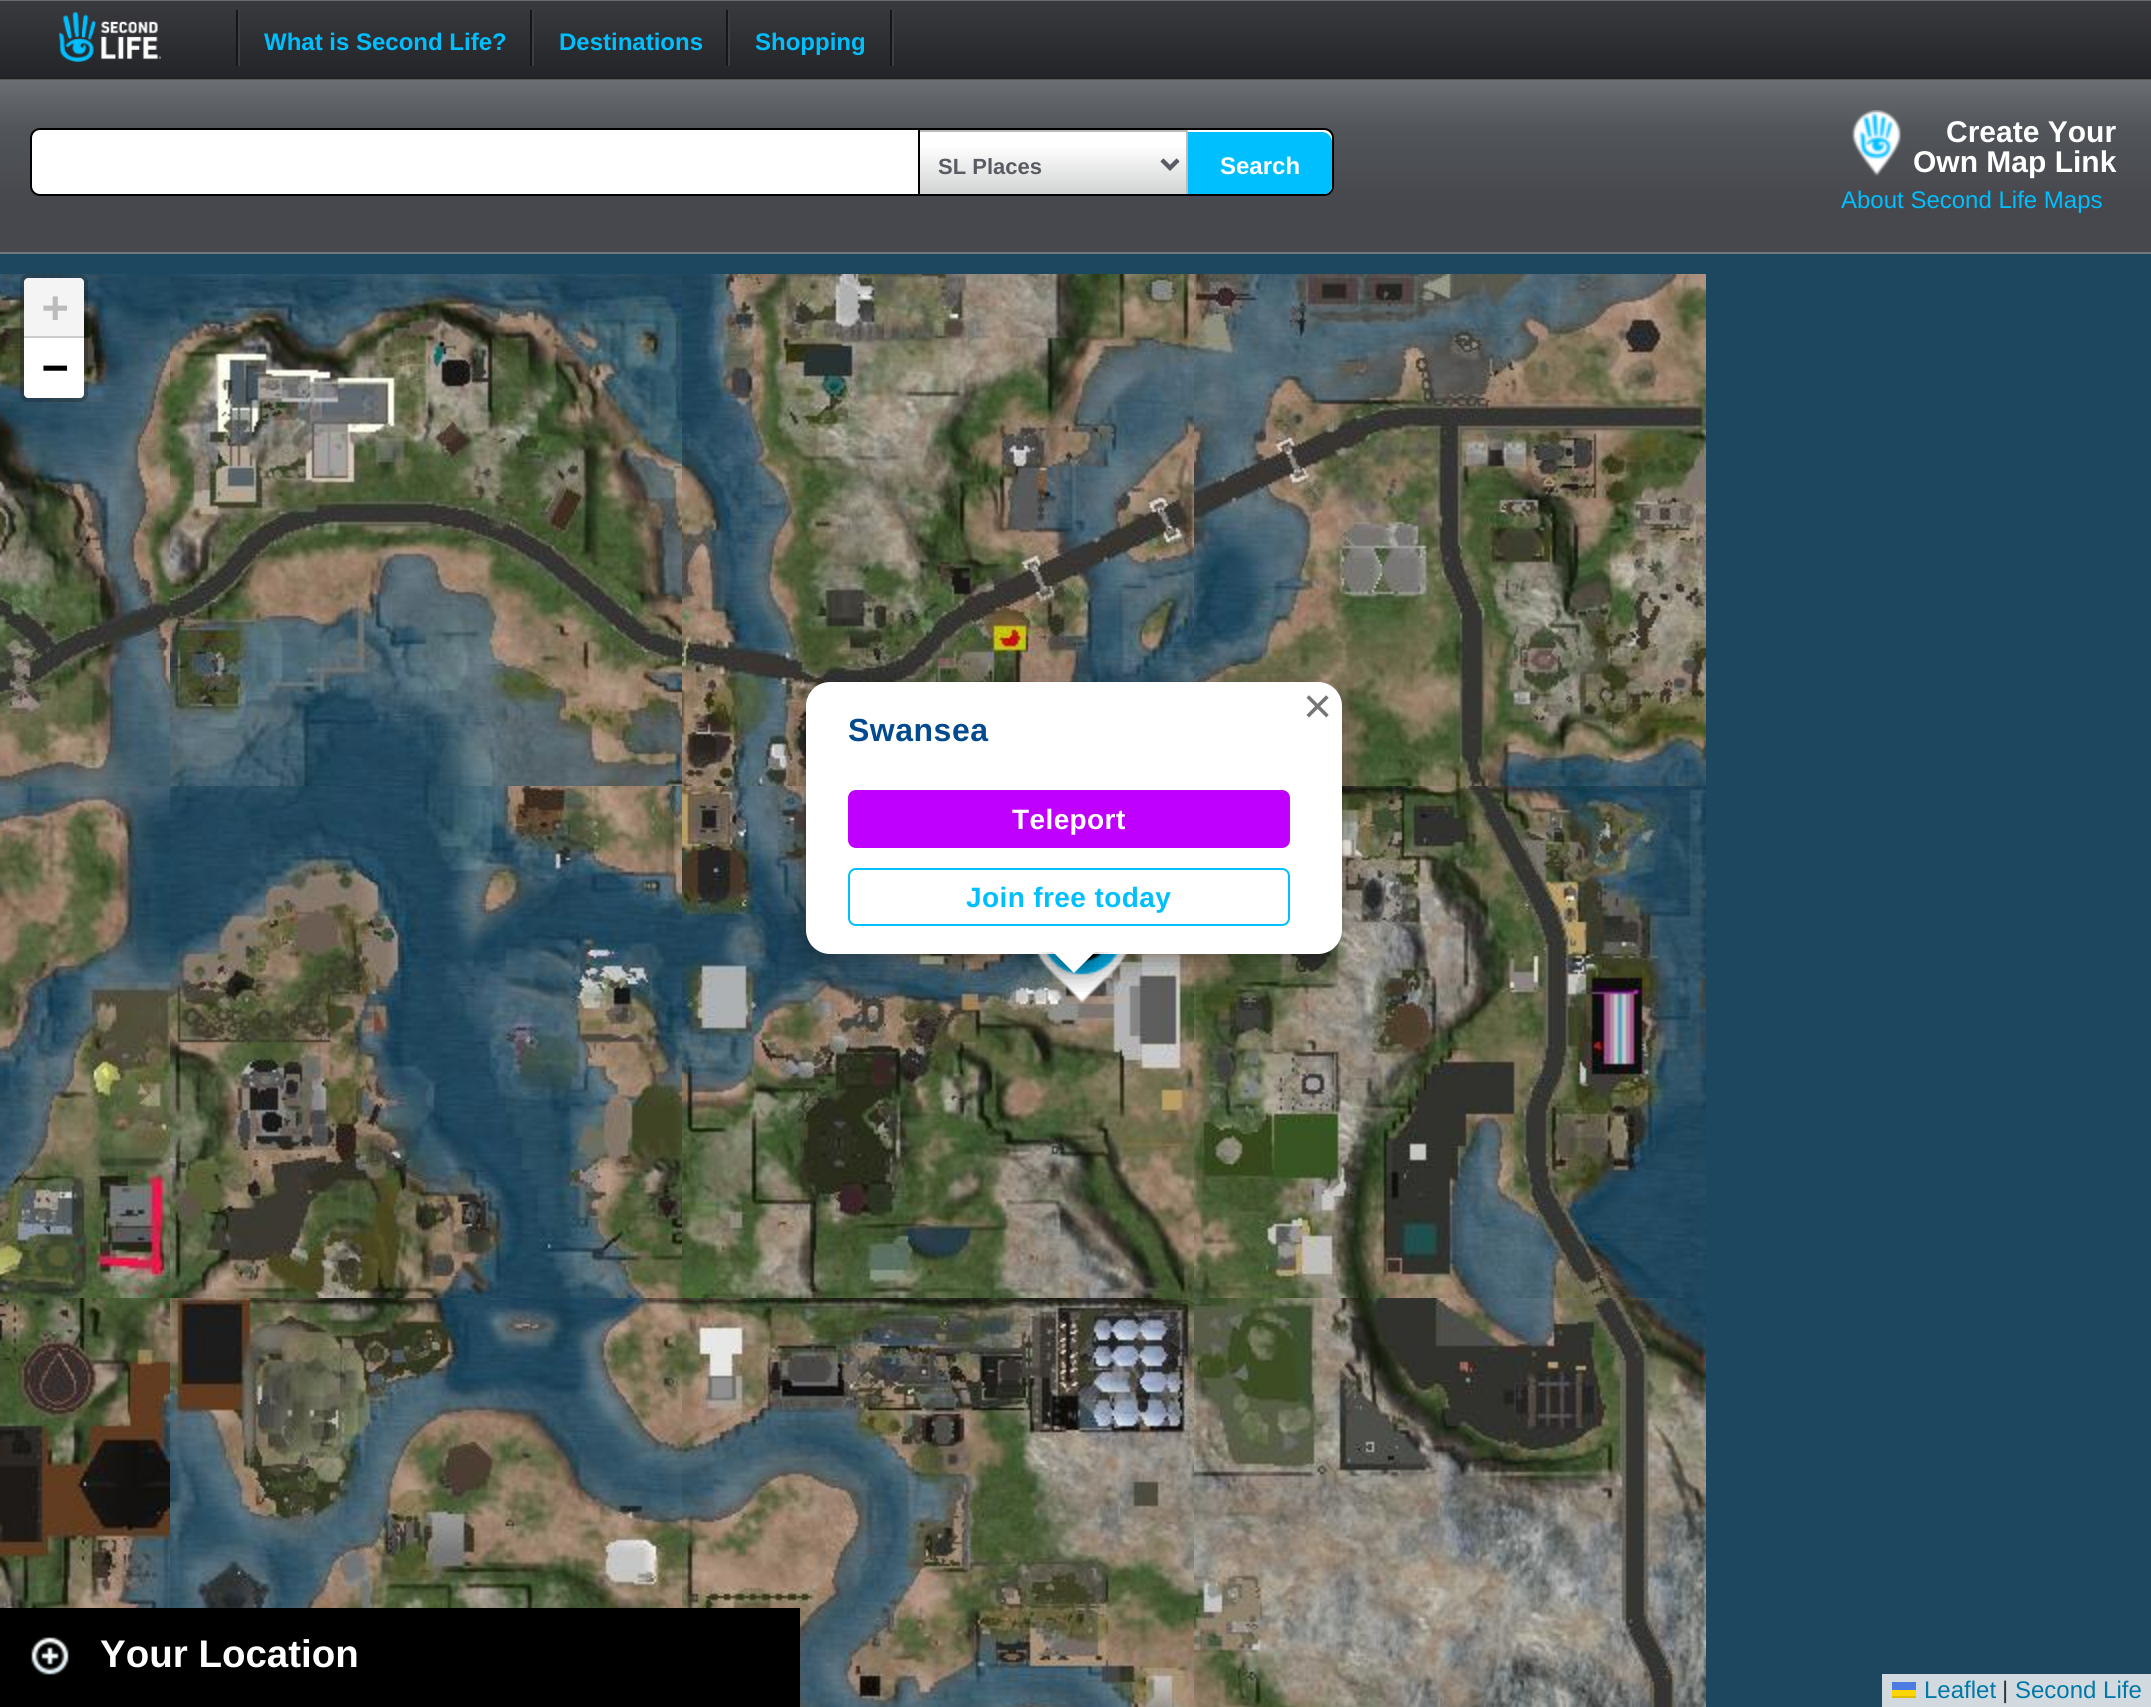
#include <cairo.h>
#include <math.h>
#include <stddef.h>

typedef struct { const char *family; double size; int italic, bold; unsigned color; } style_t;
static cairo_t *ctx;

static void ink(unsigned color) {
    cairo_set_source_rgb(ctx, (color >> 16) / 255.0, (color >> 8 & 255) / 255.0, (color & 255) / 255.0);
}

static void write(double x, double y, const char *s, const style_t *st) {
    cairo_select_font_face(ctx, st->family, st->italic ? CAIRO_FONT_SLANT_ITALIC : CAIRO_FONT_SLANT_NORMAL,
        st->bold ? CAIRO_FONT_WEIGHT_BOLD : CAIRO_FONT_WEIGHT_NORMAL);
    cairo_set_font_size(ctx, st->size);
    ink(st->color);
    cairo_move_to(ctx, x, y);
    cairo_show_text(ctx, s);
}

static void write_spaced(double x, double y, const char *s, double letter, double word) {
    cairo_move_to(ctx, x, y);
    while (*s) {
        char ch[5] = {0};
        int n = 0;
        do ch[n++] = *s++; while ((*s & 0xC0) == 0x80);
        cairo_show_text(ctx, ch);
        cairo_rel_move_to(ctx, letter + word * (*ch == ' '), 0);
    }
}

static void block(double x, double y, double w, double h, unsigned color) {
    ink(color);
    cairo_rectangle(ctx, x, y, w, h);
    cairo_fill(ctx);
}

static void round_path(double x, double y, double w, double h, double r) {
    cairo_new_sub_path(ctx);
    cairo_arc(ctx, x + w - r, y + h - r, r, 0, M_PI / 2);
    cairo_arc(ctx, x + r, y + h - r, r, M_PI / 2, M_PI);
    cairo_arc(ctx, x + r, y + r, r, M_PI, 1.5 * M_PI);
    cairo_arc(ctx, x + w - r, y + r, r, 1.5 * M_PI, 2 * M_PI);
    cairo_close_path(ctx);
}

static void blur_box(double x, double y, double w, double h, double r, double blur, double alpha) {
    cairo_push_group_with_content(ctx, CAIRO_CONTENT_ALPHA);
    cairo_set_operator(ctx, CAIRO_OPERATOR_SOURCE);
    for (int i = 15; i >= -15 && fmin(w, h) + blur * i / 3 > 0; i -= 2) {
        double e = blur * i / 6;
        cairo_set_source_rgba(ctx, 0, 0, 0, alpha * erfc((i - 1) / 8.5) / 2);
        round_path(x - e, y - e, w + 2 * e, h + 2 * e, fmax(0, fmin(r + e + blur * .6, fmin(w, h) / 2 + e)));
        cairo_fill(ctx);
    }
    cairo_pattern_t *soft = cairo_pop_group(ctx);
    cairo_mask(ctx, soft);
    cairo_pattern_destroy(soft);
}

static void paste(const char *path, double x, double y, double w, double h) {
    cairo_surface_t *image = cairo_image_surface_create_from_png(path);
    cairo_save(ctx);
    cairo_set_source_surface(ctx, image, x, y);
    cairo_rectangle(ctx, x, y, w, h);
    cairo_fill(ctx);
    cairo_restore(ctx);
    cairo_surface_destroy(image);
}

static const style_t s1 = {"Liberation Sans", 24, 0, 1, 0x00bfff};
static const style_t s2 = {"Liberation Sans", 22, 0, 1, 0x595c62};
static const style_t s3 = {"Liberation Sans", 24, 0, 1, 0xffffff};
static const style_t s4 = {"Liberation Sans", 30, 0, 1, 0xffffff};
static const style_t s5 = {"Liberation Sans", 24, 0, 0, 0x00bfff};
static const style_t s6 = {"DejaVu Sans Mono", 44, 0, 1, 0xbbbbbb};
static const style_t s7 = {"DejaVu Sans Mono", 44, 0, 1, 0x000000};
static const style_t s8 = {"Liberation Sans", 24, 0, 0, 0x0078a8};
static const style_t s9 = {"Liberation Sans", 24, 0, 0, 0x333333};
static const style_t s10 = {"Liberation Sans", 50, 0, 0, 0x757575};
static const style_t s11 = {"Liberation Sans", 38.5, 0, 1, 0xffffff};

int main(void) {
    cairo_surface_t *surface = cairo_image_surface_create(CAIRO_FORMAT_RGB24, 2151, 1707);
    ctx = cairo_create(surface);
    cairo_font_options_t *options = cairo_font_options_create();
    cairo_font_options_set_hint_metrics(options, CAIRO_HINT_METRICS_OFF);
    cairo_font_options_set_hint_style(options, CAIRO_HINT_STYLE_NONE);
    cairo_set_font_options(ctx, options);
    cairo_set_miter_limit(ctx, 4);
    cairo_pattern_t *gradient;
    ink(0xffffff);
    cairo_paint(ctx);
    paste("pic1.png", 0, 0, 2151, 80);
    paste("pic2.png", 59, 12, 102, 50);
    block(238, 10, 2, 56, 0x3a3e42);
    block(236, 10, 2, 56, 0x161616);
    write(264, 50, "What is Second Life?", &s1);
    block(532, 10, 2, 56, 0x3a3e42);
    block(530, 10, 2, 56, 0x161616);
    write(559, 50, "Destinations", &s1);
    block(728, 10, 2, 56, 0x3a3e42);
    block(726, 10, 2, 56, 0x161616);
    write(755, 50, "Shopping", &s1);
    block(892, 10, 2, 56, 0x3a3e42);
    block(890, 10, 2, 56, 0x161616);
    gradient = cairo_pattern_create_linear(0, 252, 0, 80);
    cairo_pattern_add_color_stop_rgba(gradient, 0.29, 0.278, 0.282, 0.302, 1);
    cairo_pattern_add_color_stop_rgba(gradient, 0.71, 0.318, 0.333, 0.349, 1);
    cairo_pattern_add_color_stop_rgba(gradient, 1, 0.42, 0.431, 0.451, 1);
    cairo_set_source(ctx, gradient);
    cairo_pattern_destroy(gradient);
    cairo_rectangle(ctx, 0, 80, 2151, 172);
    cairo_fill(ctx);
    block(0, 252, 2151, 2, 0x72777e);
    ink(0xffffff);
    round_path(31, 129, 1302, 66, 9);
    cairo_fill_preserve(ctx);
    ink(0x000000);
    cairo_stroke(ctx);
    paste("pic3.png", 920, 132, 266, 62);
    block(918, 130, 270, 2, 0xbbbbbb);
    block(1186, 130, 2, 64, 0xbbbbbb);
    block(918, 130, 2, 64, 0x000000);
    cairo_new_path(ctx);
    cairo_move_to(ctx, 1162, 160);
    cairo_line_to(ctx, 1170, 168);
    cairo_line_to(ctx, 1178, 160);
    ink(0x595c62);
    cairo_set_line_width(ctx, 4);
    cairo_stroke(ctx);
    write(938, 174, "SL Places", &s2);
    cairo_save(ctx);
    round_path(32, 130, 1300, 64, 8);
    cairo_clip(ctx);
    ink(0x00bfff);
    cairo_new_path(ctx);
    cairo_move_to(ctx, 1188, 132);
    cairo_line_to(ctx, 1322, 132);
    cairo_curve_to(ctx, 1327.5, 132, 1332, 136.5, 1332, 142);
    cairo_line_to(ctx, 1332, 190);
    cairo_curve_to(ctx, 1332, 195.5, 1327.5, 200, 1322, 200);
    cairo_line_to(ctx, 1188, 200);
    cairo_close_path(ctx);
    cairo_fill(ctx);
    cairo_restore(ctx);
    write(1220, 174, "Search", &s3);
    paste("pic4.png", 1851, 110, 51, 66);
    write(1946, 142, "Create Your", &s4);
    write(1913, 172, "Own Map Link", &s4);
    write(1841, 208, "About Second Life Maps", &s5);
    block(0, 254, 2151, 1453, 0x1d475f);
    paste("pic5.png", 0, 274, 170, 512);
    round_path(22, 276, 64, 124, 6);
    cairo_set_source_rgba(ctx, 0, 0, 0, 0.2);
    cairo_stroke(ctx);
    ink(0xf4f4f4);
    cairo_new_path(ctx);
    cairo_move_to(ctx, 28, 278);
    cairo_line_to(ctx, 80, 278);
    cairo_curve_to(ctx, 82, 278, 84, 280, 84, 282);
    cairo_line_to(ctx, 84, 338);
    cairo_line_to(ctx, 24, 338);
    cairo_line_to(ctx, 24, 282);
    cairo_curve_to(ctx, 24, 280, 26, 278, 28, 278);
    cairo_close_path(ctx);
    cairo_fill(ctx);
    block(24, 336, 60, 2, 0xcccccc);
    write(42, 322, "+", &s6);
    ink(0xffffff);
    cairo_new_path(ctx);
    cairo_move_to(ctx, 24, 338);
    cairo_line_to(ctx, 84, 338);
    cairo_line_to(ctx, 84, 394);
    cairo_curve_to(ctx, 84, 396, 82, 398, 80, 398);
    cairo_line_to(ctx, 28, 398);
    cairo_curve_to(ctx, 26, 398, 24, 396, 24, 394);
    cairo_close_path(ctx);
    cairo_fill(ctx);
    write(42, 382, "−", &s7);
    block(1882, 1674, 269, 33, 0xd2dadf);
    write(1924, 1698, "Leaflet", &s8);
    block(1892, 1682, 24, 8, 0x4c7be1);
    block(1892, 1690, 24, 6, 0xffd500);
    block(1892, 1696, 24, 2, 0xe0bc00);
    write(2002, 1698, "|", &s9);
    write(2015, 1698, "Second Life", &s8);
    paste("pic6.png", 170, 274, 512, 512);
    paste("pic7.png", 682, 274, 512, 512);
    paste("pic8.png", 1194, 274, 512, 512);
    paste("pic9.png", 0, 786, 170, 512);
    paste("pic10.png", 170, 786, 512, 512);
    paste("pic11.png", 682, 786, 512, 512);
    paste("pic12.png", 1194, 786, 512, 512);
    paste("pic13.png", 0, 1298, 170, 310);
    paste("pic14.png", 170, 1298, 512, 310);
    paste("pic15.png", 682, 1298, 512, 409);
    paste("pic16.png", 1194, 1298, 512, 409);
    paste("pic17.png", 1037, 954, 91, 49);
    ink(0x000000);
    blur_box(806, 688, 536, 272, 24, 14, 0.4);
    ink(0xffffff);
    round_path(806, 682, 536, 272, 24);
    cairo_fill(ctx);
    write(1303, 723, "×", &s10);
    cairo_select_font_face(ctx, "Liberation Sans", CAIRO_FONT_SLANT_NORMAL, CAIRO_FONT_WEIGHT_BOLD);
    cairo_set_font_size(ctx, 32);
    ink(0x014a8e);
    write_spaced(848, 741, "Swansea", 0.5, 0);
    ink(0xbf00ff);
    round_path(848, 790, 442, 58, 8);
    cairo_fill(ctx);
    cairo_set_font_size(ctx, 28);
    ink(0xffffff);
    write_spaced(1012, 829, "Teleport", 0.4, 0);
    round_path(849, 869, 440, 56, 7);
    ink(0x00bfff);
    cairo_set_line_width(ctx, 2);
    cairo_stroke(ctx);
    write_spaced(966, 907, "Join free today", 0.4, 0);
    cairo_save(ctx);
    cairo_rectangle(ctx, 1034, 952, 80, 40);
    cairo_clip(ctx);
    ink(0x000000);
    blur_box(1058, 938, 34, 34, 0, 14, 0.4);
    cairo_restore(ctx);
    cairo_save(ctx);
    cairo_rectangle(ctx, 1034, 952, 80, 40);
    cairo_clip(ctx);
    ink(0xffffff);
    cairo_new_path(ctx);
    cairo_move_to(ctx, 1074, 925);
    cairo_line_to(ctx, 1098, 949);
    cairo_line_to(ctx, 1074, 973);
    cairo_line_to(ctx, 1050, 949);
    cairo_close_path(ctx);
    cairo_fill(ctx);
    cairo_restore(ctx);
    block(0, 1608, 800, 99, 0x000000);
    paste("pic18.png", 31, 1637, 38, 38);
    write(100, 1667, "Your Location", &s11);
    cairo_surface_write_to_png(surface, "screenshot.png");
    cairo_font_options_destroy(options);
    cairo_destroy(ctx);
    cairo_surface_destroy(surface);
    return 0;
}
